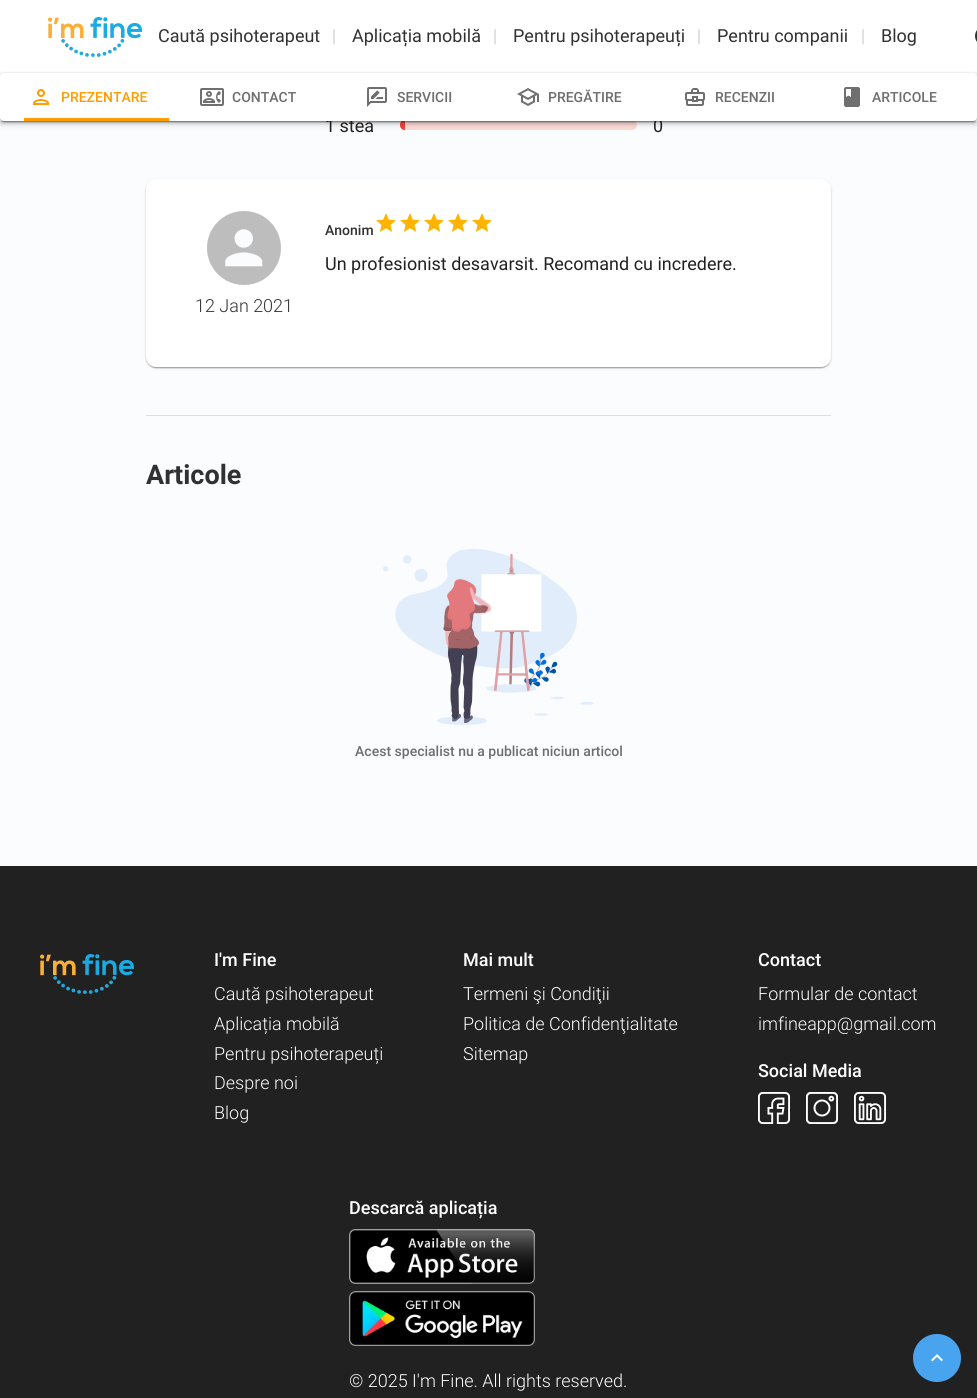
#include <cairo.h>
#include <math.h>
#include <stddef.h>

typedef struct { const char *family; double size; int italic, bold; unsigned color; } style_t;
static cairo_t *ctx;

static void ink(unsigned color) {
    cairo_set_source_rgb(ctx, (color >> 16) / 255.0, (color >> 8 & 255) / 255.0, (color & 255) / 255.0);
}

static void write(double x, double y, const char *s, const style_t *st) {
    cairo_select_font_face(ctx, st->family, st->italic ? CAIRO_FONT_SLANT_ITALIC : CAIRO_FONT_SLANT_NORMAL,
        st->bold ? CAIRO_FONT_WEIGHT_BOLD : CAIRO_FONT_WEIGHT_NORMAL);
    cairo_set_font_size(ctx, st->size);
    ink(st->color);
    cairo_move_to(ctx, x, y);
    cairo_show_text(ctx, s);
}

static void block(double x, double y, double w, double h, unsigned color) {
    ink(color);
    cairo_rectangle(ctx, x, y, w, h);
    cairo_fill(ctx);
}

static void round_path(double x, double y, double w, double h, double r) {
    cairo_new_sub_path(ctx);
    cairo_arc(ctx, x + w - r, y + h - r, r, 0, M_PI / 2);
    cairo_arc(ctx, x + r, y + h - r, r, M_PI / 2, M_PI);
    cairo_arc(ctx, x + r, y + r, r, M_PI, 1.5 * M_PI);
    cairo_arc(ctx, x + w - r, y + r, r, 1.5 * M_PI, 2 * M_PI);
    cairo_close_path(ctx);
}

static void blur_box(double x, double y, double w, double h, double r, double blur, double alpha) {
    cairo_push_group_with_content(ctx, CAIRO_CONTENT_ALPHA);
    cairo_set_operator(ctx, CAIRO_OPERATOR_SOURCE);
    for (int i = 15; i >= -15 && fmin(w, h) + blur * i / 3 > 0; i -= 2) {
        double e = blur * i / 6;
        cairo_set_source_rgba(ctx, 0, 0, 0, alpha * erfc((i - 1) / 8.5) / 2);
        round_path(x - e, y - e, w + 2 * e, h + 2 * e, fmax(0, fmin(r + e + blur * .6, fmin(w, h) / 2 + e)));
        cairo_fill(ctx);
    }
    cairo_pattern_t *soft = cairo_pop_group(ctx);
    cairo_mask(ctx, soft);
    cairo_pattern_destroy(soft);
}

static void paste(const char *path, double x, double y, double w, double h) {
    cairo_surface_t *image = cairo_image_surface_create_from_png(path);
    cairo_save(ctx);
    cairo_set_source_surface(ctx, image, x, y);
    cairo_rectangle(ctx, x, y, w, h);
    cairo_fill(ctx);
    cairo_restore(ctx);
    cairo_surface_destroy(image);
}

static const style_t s1 = {"Roboto", 18, 0, 0, 0x313131};
static const style_t s2 = {"Roboto Light", 18, 0, 0, 0xbdbdbd};
static const style_t s3 = {"Roboto", 18, 0, 0, 0x212121};
static const style_t s4 = {"Roboto Medium", 14, 0, 0, 0xff9c00};
static const style_t s5 = {"Roboto Medium", 14, 0, 0, 0x6e6e6f};
static const style_t s6 = {"Roboto Medium", 14, 0, 0, 0x313131};
static const style_t s7 = {"Roboto Light", 18, 0, 0, 0x313131};
static const style_t s8 = {"Roboto", 27, 0, 1, 0x313131};
static const style_t s9 = {"Roboto Medium", 18, 0, 0, 0xffffff};
static const style_t s10 = {"Roboto Light", 18, 0, 0, 0xffffff};

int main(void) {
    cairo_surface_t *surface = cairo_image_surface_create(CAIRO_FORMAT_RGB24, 977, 1398);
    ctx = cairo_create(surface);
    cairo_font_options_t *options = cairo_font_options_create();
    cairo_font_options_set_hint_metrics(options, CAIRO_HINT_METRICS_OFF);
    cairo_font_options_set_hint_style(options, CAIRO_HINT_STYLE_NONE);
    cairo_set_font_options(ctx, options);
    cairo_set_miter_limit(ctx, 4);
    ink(0xfbfcfe);
    cairo_paint(ctx);
    block(0, 0, 977, 72, 0xffffff);
    paste("pic1.png", 48, 17, 94, 40);
    write(158, 42, "Caută psihoterapeut", &s1);
    write(332, 42, "|", &s2);
    write(352, 42, "Aplicația mobilă", &s1);
    write(493, 42, "|", &s2);
    write(513, 42, "Pentru psihoterapeuți", &s1);
    write(697, 42, "|", &s2);
    write(717, 42, "Pentru companii", &s1);
    write(861, 42, "|", &s2);
    write(881, 42, "Blog", &s1);
    paste("pic2.png", 975, 30, 2, 12);
    ink(0xfcd9d6);
    round_path(400, 120, 237, 10, 5);
    cairo_fill(ctx);
    ink(0xf44336);
    cairo_new_path(ctx);
    cairo_move_to(ctx, 405, 120);
    cairo_line_to(ctx, 405, 130);
    cairo_curve_to(ctx, 402, 130, 400, 128, 400, 125);
    cairo_curve_to(ctx, 400, 122, 402, 120, 405, 120);
    cairo_close_path(ctx);
    cairo_fill(ctx);
    ink(0x000000);
    blur_box(0, 76, 977, 49, 0, 2.5, 0.14);
    blur_box(1, 75, 975, 47, 0, 2, 0.2);
    write(325, 132, "1 stea", &s3);
    write(653, 132, "0", &s3);
    block(0, 72, 977, 49, 0xf5f5f5);
    ink(0x000000);
    blur_box(0, 74, 977, 48, 4, 1.5, 0.12);
    blur_box(0, 74, 977, 48, 4, 0.5, 0.14);
    blur_box(1, 76, 975, 46, 3, 0.5, 0.2);
    ink(0xffffff);
    round_path(0, 73, 977, 48, 4);
    cairo_fill(ctx);
    paste("pic3.png", 33, 89, 16, 16);
    write(61, 102, "PREZENTARE", &s4);
    paste("pic4.png", 200, 88, 24, 18);
    write(232, 102, "CONTACT", &s5);
    paste("pic5.png", 367, 87, 20, 20);
    write(397, 102, "SERVICII", &s5);
    paste("pic6.png", 517, 88, 22, 18);
    write(548, 102, "PREGĂTIRE", &s5);
    paste("pic7.png", 685, 88, 20, 18);
    write(715, 102, "RECENZII", &s5);
    paste("pic8.png", 844, 87, 16, 20);
    write(872, 102, "ARTICOLE", &s5);
    block(24, 118, 145, 3, 0xff9c00);
    ink(0x000000);
    blur_box(146, 180, 685, 188, 10, 1.5, 0.12);
    blur_box(146, 180, 685, 188, 10, 0.5, 0.14);
    blur_box(147, 182, 683, 186, 9, 0.5, 0.2);
    ink(0xffffff);
    round_path(146, 179, 685, 188, 10);
    cairo_fill(ctx);
    write(325, 235, "Anonim", &s6);
    paste("pic9.png", 376, 213, 20, 19);
    paste("pic9.png", 400, 213, 20, 19);
    paste("pic9.png", 424, 213, 20, 19);
    paste("pic9.png", 448, 213, 20, 19);
    paste("pic9.png", 472, 213, 20, 19);
    write(325, 270, "Un profesionist desavarsit. Recomand cu incredere.", &s3);
    ink(0xbdbdbd);
    cairo_new_path(ctx);
    cairo_arc(ctx, 244, 248, 37, 0, 2 * M_PI);
    cairo_fill(ctx);
    paste("pic10.png", 225, 229, 38, 38);
    write(195, 312, "12 Jan 2021", &s7);
    block(146, 415, 685, 1, 0xdddee0);
    write(146, 484, "Articole", &s8);
    paste("pic11.png", 383, 549, 211, 176);
    write(355, 756, "Acest specialist nu a publicat niciun articol", &s5);
    block(0, 866, 977, 532, 0x212121);
    ink(0x49a4ef);
    cairo_new_path(ctx);
    cairo_arc(ctx, 937, 1358, 24, 0, 2 * M_PI);
    cairo_fill(ctx);
    paste("pic12.png", 931, 1354, 12, 8);
    paste("pic13.png", 40, 954, 94, 40);
    write(214, 966, "I'm Fine", &s9);
    write(214, 1000, "Caută psihoterapeut", &s10);
    write(214, 1030, "Aplicația mobilă", &s10);
    write(214, 1060, "Pentru psihoterapeuți", &s10);
    write(214, 1089, "Despre noi", &s10);
    write(214, 1119, "Blog", &s10);
    write(463, 966, "Mai mult", &s9);
    write(463, 1000, "Termeni şi Condiţii", &s10);
    write(463, 1030, "Politica de Confidenţialitate", &s10);
    write(463, 1060, "Sitemap", &s10);
    write(758, 966, "Contact", &s9);
    write(758, 1000, "Formular de contact", &s10);
    write(758, 1030, "imfineapp@gmail.com", &s10);
    write(758, 1077, "Social Media", &s9);
    paste("pic14.png", 758, 1092, 32, 32);
    paste("pic15.png", 806, 1092, 32, 32);
    paste("pic16.png", 854, 1092, 32, 32);
    write(349, 1214, "Descarcă aplicația", &s9);
    paste("pic17.png", 349, 1229, 186, 55);
    paste("pic18.png", 349, 1291, 186, 55);
    write(349, 1387, "© 2025 I'm Fine. All rights reserved.", &s10);
    cairo_surface_write_to_png(surface, "screenshot.png");
    cairo_font_options_destroy(options);
    cairo_destroy(ctx);
    cairo_surface_destroy(surface);
    return 0;
}
